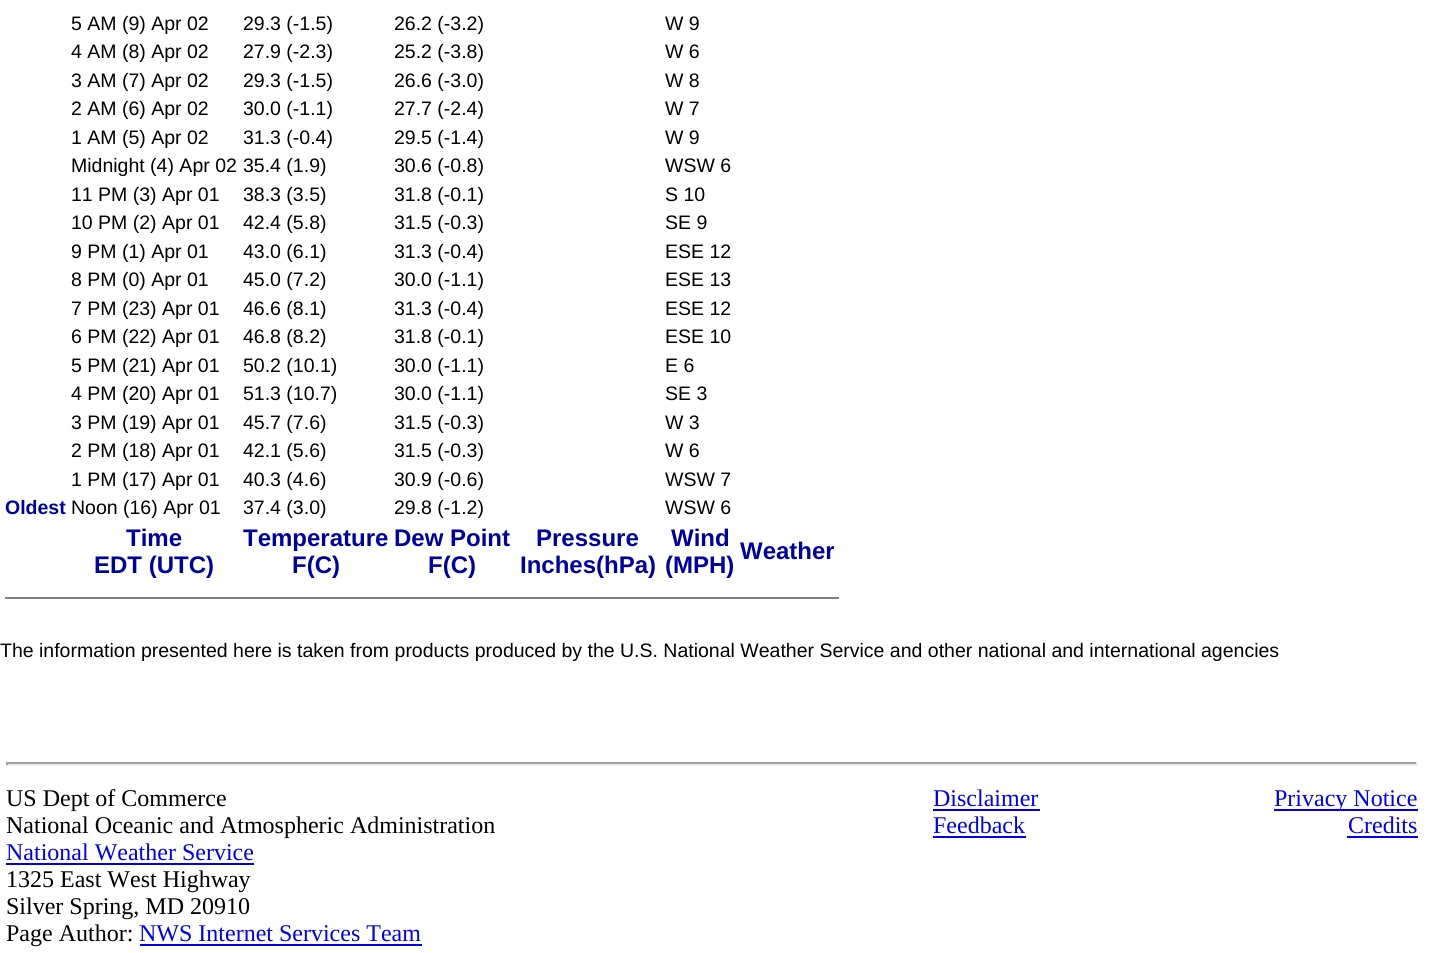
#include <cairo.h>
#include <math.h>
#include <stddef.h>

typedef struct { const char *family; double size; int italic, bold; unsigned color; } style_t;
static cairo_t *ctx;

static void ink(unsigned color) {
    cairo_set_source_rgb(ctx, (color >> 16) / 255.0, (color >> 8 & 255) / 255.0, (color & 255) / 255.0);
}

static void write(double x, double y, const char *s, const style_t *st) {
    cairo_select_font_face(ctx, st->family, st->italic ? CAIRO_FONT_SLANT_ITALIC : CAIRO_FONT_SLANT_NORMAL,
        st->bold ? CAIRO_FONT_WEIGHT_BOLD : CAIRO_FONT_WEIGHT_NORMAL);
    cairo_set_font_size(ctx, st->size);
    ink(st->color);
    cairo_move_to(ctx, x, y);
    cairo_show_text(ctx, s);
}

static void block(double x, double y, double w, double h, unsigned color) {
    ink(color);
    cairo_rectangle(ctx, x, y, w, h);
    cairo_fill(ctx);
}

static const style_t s1 = {"Liberation Sans", 19.5, 0, 0, 0x000000};
static const style_t s2 = {"Liberation Sans", 19.5, 0, 1, 0x0000a0};
static const style_t s3 = {"Liberation Sans", 24, 0, 1, 0x0000a0};
static const style_t s4 = {"Liberation Serif", 24, 0, 0, 0x000000};
static const style_t s5 = {"Liberation Serif", 24, 0, 0, 0x0000ee};

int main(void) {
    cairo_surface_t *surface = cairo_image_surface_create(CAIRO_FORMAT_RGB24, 1451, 953);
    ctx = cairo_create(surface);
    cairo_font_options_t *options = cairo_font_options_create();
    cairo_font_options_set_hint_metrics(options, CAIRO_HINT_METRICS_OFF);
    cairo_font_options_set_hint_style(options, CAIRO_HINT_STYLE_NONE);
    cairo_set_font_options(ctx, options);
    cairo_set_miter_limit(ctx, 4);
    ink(0xffffff);
    cairo_paint(ctx);
    write(71, 30, "5 AM (9) Apr 02", &s1);
    write(243, 30, "29.3 (-1.5)", &s1);
    write(394, 30, "26.2 (-3.2)", &s1);
    write(665, 30, "W 9", &s1);
    write(71, 58, "4 AM (8) Apr 02", &s1);
    write(243, 58, "27.9 (-2.3)", &s1);
    write(394, 58, "25.2 (-3.8)", &s1);
    write(665, 58, "W 6", &s1);
    write(71, 87, "3 AM (7) Apr 02", &s1);
    write(243, 87, "29.3 (-1.5)", &s1);
    write(394, 87, "26.6 (-3.0)", &s1);
    write(665, 87, "W 8", &s1);
    write(71, 115, "2 AM (6) Apr 02", &s1);
    write(243, 115, "30.0 (-1.1)", &s1);
    write(394, 115, "27.7 (-2.4)", &s1);
    write(665, 115, "W 7", &s1);
    write(71, 144, "1 AM (5) Apr 02", &s1);
    write(243, 144, "31.3 (-0.4)", &s1);
    write(394, 144, "29.5 (-1.4)", &s1);
    write(665, 144, "W 9", &s1);
    write(71, 172, "Midnight (4) Apr 02", &s1);
    write(243, 172, "35.4 (1.9)", &s1);
    write(394, 172, "30.6 (-0.8)", &s1);
    write(665, 172, "WSW 6", &s1);
    write(71, 201, "11 PM (3) Apr 01", &s1);
    write(243, 201, "38.3 (3.5)", &s1);
    write(394, 201, "31.8 (-0.1)", &s1);
    write(665, 201, "S 10", &s1);
    write(71, 229, "10 PM (2) Apr 01", &s1);
    write(243, 229, "42.4 (5.8)", &s1);
    write(394, 229, "31.5 (-0.3)", &s1);
    write(665, 229, "SE 9", &s1);
    write(71, 258, "9 PM (1) Apr 01", &s1);
    write(243, 258, "43.0 (6.1)", &s1);
    write(394, 258, "31.3 (-0.4)", &s1);
    write(665, 258, "ESE 12", &s1);
    write(71, 286, "8 PM (0) Apr 01", &s1);
    write(243, 286, "45.0 (7.2)", &s1);
    write(394, 286, "30.0 (-1.1)", &s1);
    write(665, 286, "ESE 13", &s1);
    write(71, 315, "7 PM (23) Apr 01", &s1);
    write(243, 315, "46.6 (8.1)", &s1);
    write(394, 315, "31.3 (-0.4)", &s1);
    write(665, 315, "ESE 12", &s1);
    write(71, 343, "6 PM (22) Apr 01", &s1);
    write(243, 343, "46.8 (8.2)", &s1);
    write(394, 343, "31.8 (-0.1)", &s1);
    write(665, 343, "ESE 10", &s1);
    write(71, 372, "5 PM (21) Apr 01", &s1);
    write(243, 372, "50.2 (10.1)", &s1);
    write(394, 372, "30.0 (-1.1)", &s1);
    write(665, 372, "E 6", &s1);
    write(71, 400, "4 PM (20) Apr 01", &s1);
    write(243, 400, "51.3 (10.7)", &s1);
    write(394, 400, "30.0 (-1.1)", &s1);
    write(665, 400, "SE 3", &s1);
    write(71, 429, "3 PM (19) Apr 01", &s1);
    write(243, 429, "45.7 (7.6)", &s1);
    write(394, 429, "31.5 (-0.3)", &s1);
    write(665, 429, "W 3", &s1);
    write(71, 457, "2 PM (18) Apr 01", &s1);
    write(243, 457, "42.1 (5.6)", &s1);
    write(394, 457, "31.5 (-0.3)", &s1);
    write(665, 457, "W 6", &s1);
    write(71, 486, "1 PM (17) Apr 01", &s1);
    write(243, 486, "40.3 (4.6)", &s1);
    write(394, 486, "30.9 (-0.6)", &s1);
    write(665, 486, "WSW 7", &s1);
    write(5, 514, "Oldest", &s2);
    write(71, 514, "Noon (16) Apr 01", &s1);
    write(243, 514, "37.4 (3.0)", &s1);
    write(394, 514, "29.8 (-1.2)", &s1);
    write(665, 514, "WSW 6", &s1);
    write(126, 546, "Time", &s3);
    write(94, 573, "EDT (UTC)", &s3);
    write(243, 546, "Temperature", &s3);
    write(292, 573, "F(C)", &s3);
    write(394, 546, "Dew Point", &s3);
    write(428, 573, "F(C)", &s3);
    write(536, 546, "Pressure", &s3);
    write(520, 573, "Inches(hPa)", &s3);
    write(671, 546, "Wind", &s3);
    write(665, 573, "(MPH)", &s3);
    write(740, 559, "Weather", &s3);
    block(5, 597, 834, 2, 0x808080);
    write(0, 657, "The information presented here is taken from products produced by the U.S. National Weather Service and other national and international agencies", &s1);
    block(6, 762, 1412, 2, 0x9f9f9f);
    block(1416, 762, 2, 3, 0xeeeeee);
    block(6, 764, 1412, 2, 0xeeeeee);
    block(6, 762, 2, 3, 0x9f9f9f);
    write(6, 806, "US Dept of Commerce", &s4);
    write(6, 833, "National Oceanic and Atmospheric Administration", &s4);
    write(6, 860, "National Weather Service", &s5);
    block(6, 863, 248, 2, 0x0000ee);
    write(6, 887, "1325 East West Highway", &s4);
    write(6, 914, "Silver Spring, MD 20910", &s4);
    write(6, 941, "Page Author:", &s4);
    write(139, 941, "NWS Internet Services Team", &s5);
    block(140, 944, 282, 2, 0x0000ee);
    write(933, 806, "Disclaimer", &s5);
    block(933, 809, 107, 2, 0x0000ee);
    write(933, 833, "Feedback", &s5);
    block(933, 836, 93, 2, 0x0000ee);
    block(1274, 809, 144, 2, 0x0000ee);
    write(1274, 806, "Privacy Notice", &s5);
    write(1348, 833, "Credits", &s5);
    block(1347, 836, 71, 2, 0x0000ee);
    cairo_surface_write_to_png(surface, "screenshot.png");
    cairo_font_options_destroy(options);
    cairo_destroy(ctx);
    cairo_surface_destroy(surface);
    return 0;
}
